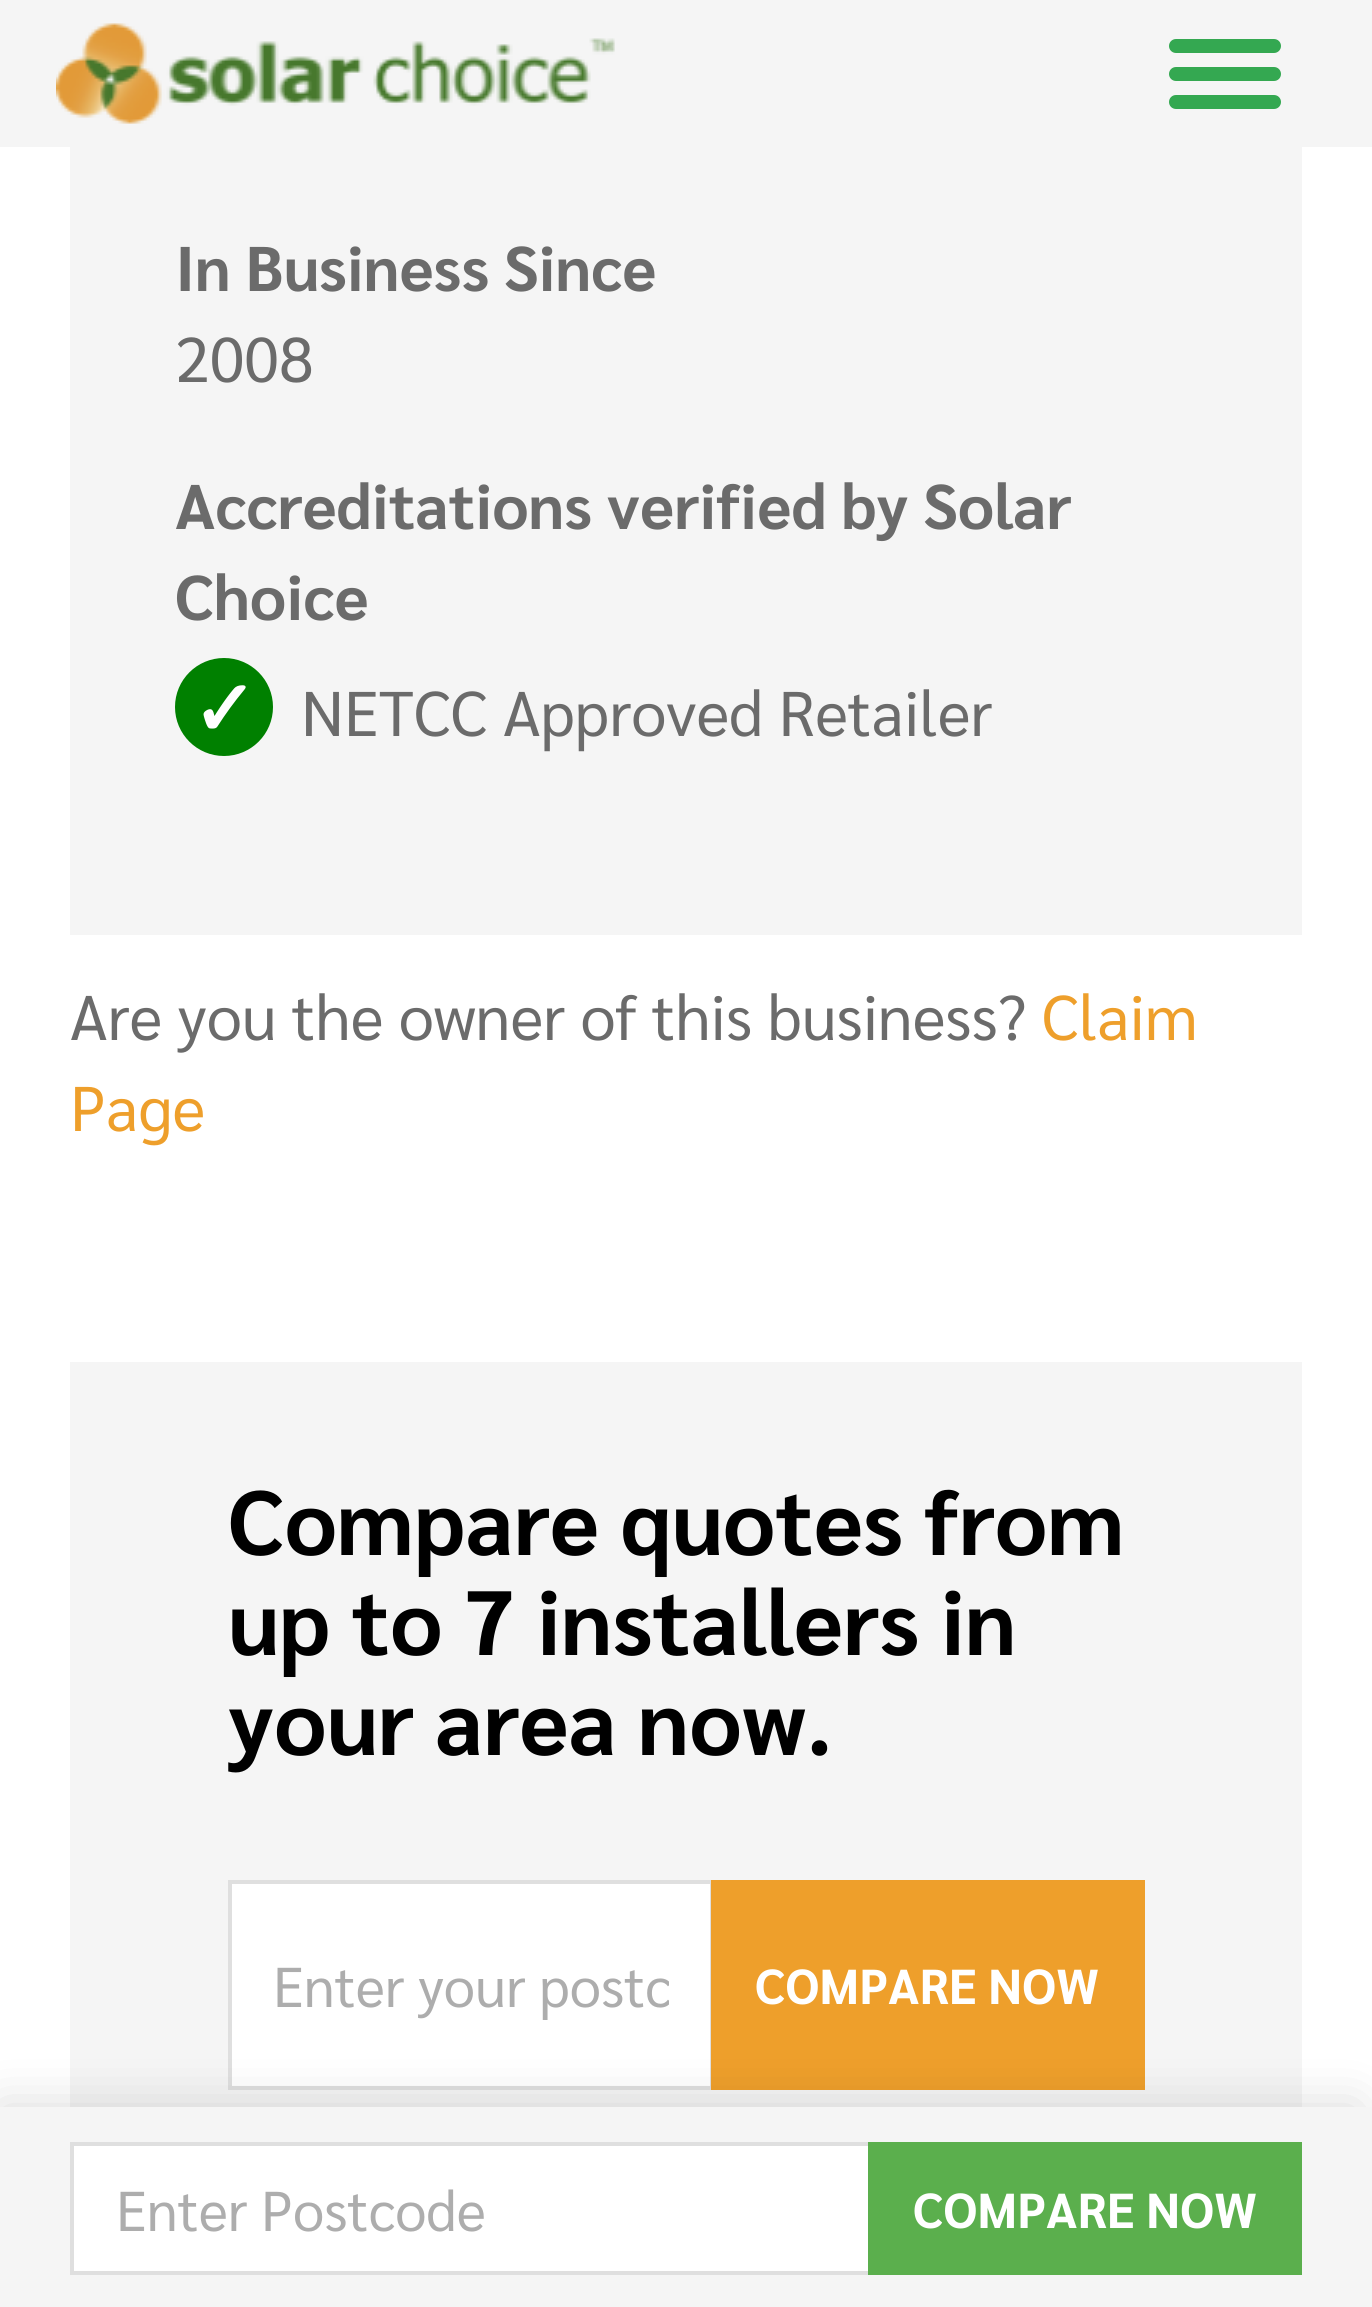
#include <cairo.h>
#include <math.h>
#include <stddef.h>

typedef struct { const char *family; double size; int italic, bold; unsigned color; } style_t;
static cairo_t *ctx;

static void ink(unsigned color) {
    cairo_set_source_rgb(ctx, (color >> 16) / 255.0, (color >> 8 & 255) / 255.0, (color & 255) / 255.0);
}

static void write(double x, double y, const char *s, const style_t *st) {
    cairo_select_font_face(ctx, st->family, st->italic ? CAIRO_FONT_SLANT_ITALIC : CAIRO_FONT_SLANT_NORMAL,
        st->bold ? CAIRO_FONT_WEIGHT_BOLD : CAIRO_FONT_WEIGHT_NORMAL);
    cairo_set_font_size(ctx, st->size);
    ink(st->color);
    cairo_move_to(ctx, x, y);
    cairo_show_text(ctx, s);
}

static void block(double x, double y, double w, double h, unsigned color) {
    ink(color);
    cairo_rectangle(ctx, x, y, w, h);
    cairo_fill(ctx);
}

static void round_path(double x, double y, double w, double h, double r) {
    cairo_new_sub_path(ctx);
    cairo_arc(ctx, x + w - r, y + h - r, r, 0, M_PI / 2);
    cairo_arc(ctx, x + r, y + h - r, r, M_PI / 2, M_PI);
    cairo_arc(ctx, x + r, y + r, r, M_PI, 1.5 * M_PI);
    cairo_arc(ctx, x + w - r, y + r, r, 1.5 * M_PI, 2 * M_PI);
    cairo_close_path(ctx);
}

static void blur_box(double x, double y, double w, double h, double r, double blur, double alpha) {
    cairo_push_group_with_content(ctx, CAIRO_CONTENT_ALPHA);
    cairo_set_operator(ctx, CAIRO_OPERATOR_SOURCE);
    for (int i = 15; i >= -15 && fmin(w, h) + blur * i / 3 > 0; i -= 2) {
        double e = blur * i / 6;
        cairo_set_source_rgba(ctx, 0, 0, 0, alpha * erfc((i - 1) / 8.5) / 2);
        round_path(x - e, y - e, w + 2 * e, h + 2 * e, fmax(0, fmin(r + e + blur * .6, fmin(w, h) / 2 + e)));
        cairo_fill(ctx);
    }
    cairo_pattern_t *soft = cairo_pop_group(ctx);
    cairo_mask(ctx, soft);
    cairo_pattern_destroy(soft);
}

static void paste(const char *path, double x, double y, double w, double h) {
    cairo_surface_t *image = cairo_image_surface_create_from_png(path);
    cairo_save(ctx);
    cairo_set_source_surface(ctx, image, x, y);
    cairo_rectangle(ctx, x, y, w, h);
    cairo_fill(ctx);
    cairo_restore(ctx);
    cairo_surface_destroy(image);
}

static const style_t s1 = {"Sarabun", 63, 0, 1, 0x6b6b6b};
static const style_t s2 = {"Sarabun", 63, 0, 0, 0x6b6b6b};
static const style_t s3 = {"DejaVu Sans", 77, 0, 1, 0xffffff};
static const style_t s4 = {"Sarabun", 63, 0, 0, 0xee9f2b};
static const style_t s5 = {"Sarabun", 91, 0, 1, 0x000000};
static const style_t s6 = {"Sarabun", 56, 0, 0, 0xadadad};
static const style_t s7 = {"Sarabun", 49, 0, 1, 0xffffff};

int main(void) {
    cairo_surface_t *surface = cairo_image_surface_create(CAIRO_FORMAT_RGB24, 1372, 2307);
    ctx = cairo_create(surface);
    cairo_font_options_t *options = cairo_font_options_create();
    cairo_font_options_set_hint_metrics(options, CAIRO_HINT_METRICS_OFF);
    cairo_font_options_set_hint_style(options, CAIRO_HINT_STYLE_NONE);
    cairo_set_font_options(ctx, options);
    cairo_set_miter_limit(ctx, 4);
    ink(0xffffff);
    cairo_paint(ctx);
    block(0, 0, 1372, 147, 0xf5f5f5);
    paste("pic1.png", 56, 23, 559, 101);
    ink(0x34a851);
    round_path(1169, 39, 112, 14, 7);
    cairo_fill(ctx);
    round_path(1169, 67, 112, 14, 7);
    cairo_fill(ctx);
    round_path(1169, 95, 112, 14, 7);
    cairo_fill(ctx);
    block(70, 147, 1232, 788, 0xf5f5f5);
    write(175, 291, "In Business Since", &s1);
    write(175, 382, "2008", &s2);
    write(175, 529, "Accreditations verified by Solar", &s1);
    write(175, 620, "Choice", &s1);
    ink(0x008000);
    cairo_new_path(ctx);
    cairo_arc(ctx, 224, 707, 49, 0, 2 * M_PI);
    cairo_fill(ctx);
    write(192, 736, "✓", &s3);
    write(301, 736, "NETCC Approved Retailer", &s2);
    write(70, 1040, "Are you the owner of this business?", &s2);
    write(1042, 1040, "Claim", &s4);
    write(70, 1131, "Page", &s4);
    block(70, 1362, 1232, 745, 0xf5f5f5);
    write(228, 1555, "Compare quotes from", &s5);
    write(228, 1655, "up to 7 installers in", &s5);
    write(228, 1755, "your area now.", &s5);
    ink(0xffffff);
    cairo_rectangle(ctx, 230, 1882, 482, 206);
    cairo_fill_preserve(ctx);
    ink(0xdfdfdf);
    cairo_set_line_width(ctx, 4);
    cairo_stroke(ctx);
    cairo_save(ctx);
    cairo_rectangle(ctx, 273, 1946, 396, 74);
    cairo_clip(ctx);
    write(273, 2007, "Enter your postc", &s6);
    cairo_restore(ctx);
    block(711, 1880, 434, 210, 0xee9f2b);
    write(755, 2004, "COMPARE NOW", &s7);
    ink(0x000000);
    blur_box(0, 2107, 1358, 189, 0, 26, 0.15);
    block(0, 2107, 1372, 200, 0xf5f5f5);
    ink(0xffffff);
    cairo_rectangle(ctx, 72, 2144, 798, 129);
    cairo_fill_preserve(ctx);
    ink(0xdfdfdf);
    cairo_stroke(ctx);
    write(116, 2231, "Enter Postcode", &s6);
    block(868, 2142, 434, 133, 0x5baf4d);
    write(913, 2228, "COMPARE NOW", &s7);
    cairo_surface_write_to_png(surface, "screenshot.png");
    cairo_font_options_destroy(options);
    cairo_destroy(ctx);
    cairo_surface_destroy(surface);
    return 0;
}
